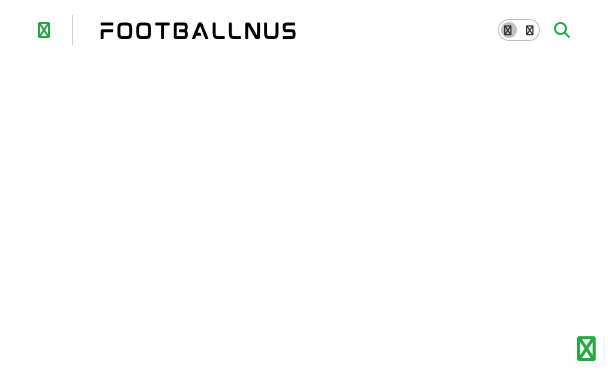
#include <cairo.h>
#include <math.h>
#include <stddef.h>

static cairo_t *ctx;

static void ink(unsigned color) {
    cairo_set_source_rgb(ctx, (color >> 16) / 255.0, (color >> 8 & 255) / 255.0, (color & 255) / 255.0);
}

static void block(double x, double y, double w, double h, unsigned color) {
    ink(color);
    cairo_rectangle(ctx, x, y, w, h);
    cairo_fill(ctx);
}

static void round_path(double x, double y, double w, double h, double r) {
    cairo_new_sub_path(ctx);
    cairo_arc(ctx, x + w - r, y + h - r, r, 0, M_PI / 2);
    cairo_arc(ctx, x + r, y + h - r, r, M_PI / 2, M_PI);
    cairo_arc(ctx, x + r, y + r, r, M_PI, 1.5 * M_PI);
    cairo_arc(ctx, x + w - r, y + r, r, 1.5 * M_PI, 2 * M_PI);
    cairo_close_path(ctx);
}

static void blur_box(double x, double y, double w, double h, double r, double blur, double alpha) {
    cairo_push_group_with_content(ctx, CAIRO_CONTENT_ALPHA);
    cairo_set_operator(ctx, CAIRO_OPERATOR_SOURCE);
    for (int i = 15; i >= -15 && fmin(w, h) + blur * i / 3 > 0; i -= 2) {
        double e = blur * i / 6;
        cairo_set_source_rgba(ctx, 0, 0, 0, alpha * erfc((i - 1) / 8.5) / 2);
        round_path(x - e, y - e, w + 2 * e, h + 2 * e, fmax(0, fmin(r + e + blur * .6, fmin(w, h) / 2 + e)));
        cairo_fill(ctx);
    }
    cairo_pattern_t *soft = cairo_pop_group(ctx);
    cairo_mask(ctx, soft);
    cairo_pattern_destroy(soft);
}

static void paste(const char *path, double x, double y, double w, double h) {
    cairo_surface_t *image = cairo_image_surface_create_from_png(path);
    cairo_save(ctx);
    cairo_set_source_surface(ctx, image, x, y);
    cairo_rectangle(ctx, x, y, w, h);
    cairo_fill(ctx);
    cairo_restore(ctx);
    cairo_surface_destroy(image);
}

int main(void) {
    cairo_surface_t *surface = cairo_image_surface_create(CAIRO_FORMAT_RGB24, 608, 373);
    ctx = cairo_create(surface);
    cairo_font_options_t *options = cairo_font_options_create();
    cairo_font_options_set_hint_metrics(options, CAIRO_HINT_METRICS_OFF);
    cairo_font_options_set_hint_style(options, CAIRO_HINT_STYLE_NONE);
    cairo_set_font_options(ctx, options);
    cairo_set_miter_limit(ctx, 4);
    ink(0xffffff);
    cairo_paint(ctx);
    paste("pic1.png", 38, 22, 12, 16);
    block(72, 15, 1, 30, 0xcfcfcf);
    paste("pic2.png", 100, 22, 196, 17);
    round_path(498.5, 19.5, 41, 21, 10.5);
    ink(0xbfbfbf);
    cairo_set_line_width(ctx, 1);
    cairo_stroke(ctx);
    ink(0xc2c2c2);
    cairo_arc(ctx, 509, 30, 8, 0, 2 * M_PI);
    cairo_fill(ctx);
    paste("pic3.png", 504, 25, 8, 11);
    paste("pic4.png", 526, 25, 8, 11);
    paste("pic5.png", 554, 22, 16, 16);
    ink(0x000000);
    blur_box(575, 335, 30, 30, 2, 1.5, 0.05);
    ink(0xffffff);
    round_path(573, 333, 30, 30, 2);
    cairo_fill(ctx);
    paste("pic6.png", 577, 336, 19, 26);
    cairo_surface_write_to_png(surface, "screenshot.png");
    cairo_font_options_destroy(options);
    cairo_destroy(ctx);
    cairo_surface_destroy(surface);
    return 0;
}
